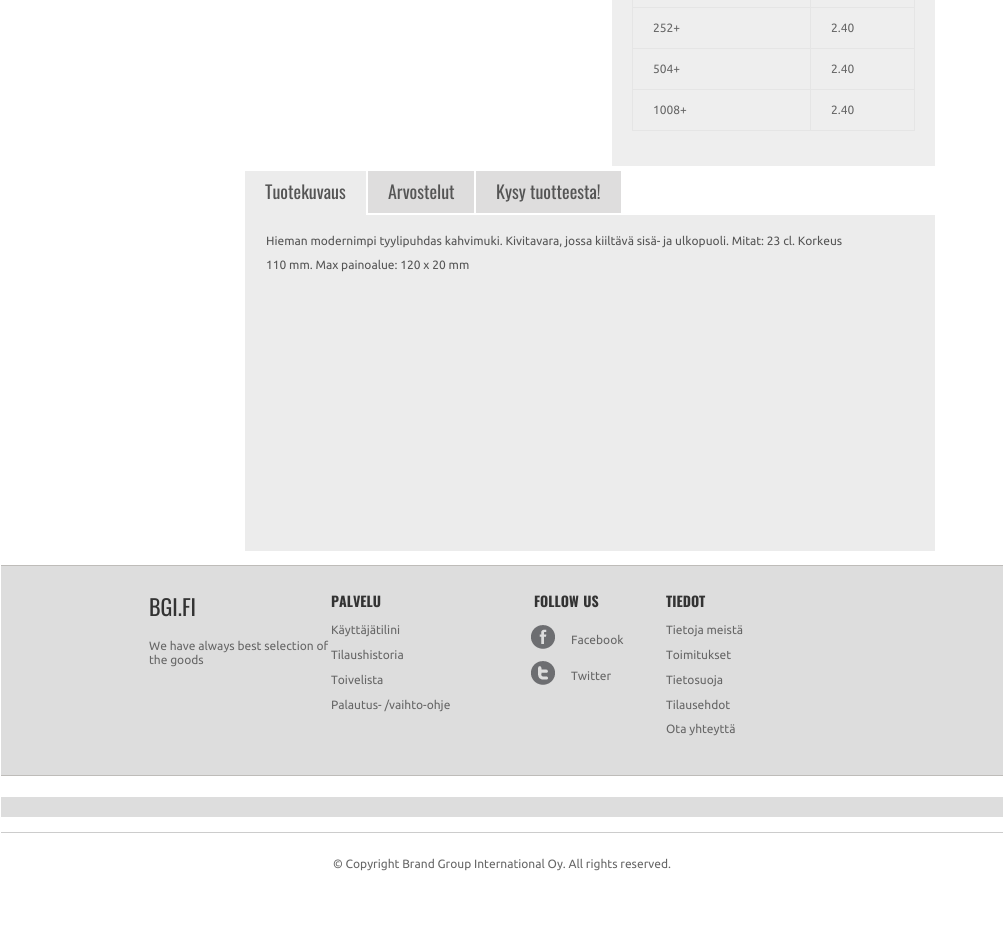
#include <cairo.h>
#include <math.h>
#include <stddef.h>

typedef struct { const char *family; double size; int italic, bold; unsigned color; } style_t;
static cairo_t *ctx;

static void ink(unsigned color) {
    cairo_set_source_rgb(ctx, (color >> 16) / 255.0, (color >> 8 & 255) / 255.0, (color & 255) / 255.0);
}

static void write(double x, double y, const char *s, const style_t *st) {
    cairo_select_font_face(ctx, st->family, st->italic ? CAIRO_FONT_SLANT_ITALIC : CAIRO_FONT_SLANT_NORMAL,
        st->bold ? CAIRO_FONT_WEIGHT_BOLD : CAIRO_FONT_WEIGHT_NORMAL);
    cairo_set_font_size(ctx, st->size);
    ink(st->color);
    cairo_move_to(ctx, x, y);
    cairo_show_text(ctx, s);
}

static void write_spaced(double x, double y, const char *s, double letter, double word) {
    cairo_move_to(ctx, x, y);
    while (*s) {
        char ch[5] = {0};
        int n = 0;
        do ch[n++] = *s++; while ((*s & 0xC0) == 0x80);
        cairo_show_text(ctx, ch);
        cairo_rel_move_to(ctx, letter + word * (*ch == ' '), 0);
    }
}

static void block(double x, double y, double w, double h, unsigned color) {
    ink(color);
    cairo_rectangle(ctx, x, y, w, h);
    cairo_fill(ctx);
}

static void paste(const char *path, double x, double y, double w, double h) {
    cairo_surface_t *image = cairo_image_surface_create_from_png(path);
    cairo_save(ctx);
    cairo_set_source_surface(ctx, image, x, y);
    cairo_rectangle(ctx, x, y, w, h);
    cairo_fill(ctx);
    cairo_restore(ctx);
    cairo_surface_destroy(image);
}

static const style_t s1 = {"Ubuntu", 12, 0, 0, 0x666666};
static const style_t s2 = {"Oswald", 18, 0, 0, 0x555555};
static const style_t s3 = {"Ubuntu", 12, 0, 0, 0x555555};
static const style_t s4 = {"Oswald", 22, 0, 0, 0x333333};
static const style_t s5 = {"Oswald", 14, 0, 1, 0x333333};

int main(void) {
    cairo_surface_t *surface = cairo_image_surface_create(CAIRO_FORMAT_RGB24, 1003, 931);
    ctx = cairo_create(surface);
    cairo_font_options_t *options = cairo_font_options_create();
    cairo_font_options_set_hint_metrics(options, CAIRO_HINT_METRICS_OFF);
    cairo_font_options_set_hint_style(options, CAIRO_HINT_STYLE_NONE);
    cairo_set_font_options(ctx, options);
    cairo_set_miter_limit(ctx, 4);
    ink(0xffffff);
    cairo_paint(ctx);
    block(612, 0, 323, 166, 0xeeeeee);
    block(810, 7, 105, 1, 0xe5e5e5);
    block(810, 48, 105, 1, 0xe5e5e5);
    block(810, 89, 105, 1, 0xe5e5e5);
    block(914, 89, 1, 42, 0xe5e5e5);
    block(810, 130, 105, 1, 0xe5e5e5);
    block(810, 89, 1, 42, 0xe5e5e5);
    block(632, 89, 179, 1, 0xe5e5e5);
    block(810, 48, 1, 42, 0xe5e5e5);
    block(632, 48, 179, 1, 0xe5e5e5);
    block(810, 7, 1, 42, 0xe5e5e5);
    block(632, 7, 179, 1, 0xe5e5e5);
    block(810, 0, 1, 8, 0xe5e5e5);
    block(632, 130, 179, 1, 0xe5e5e5);
    block(632, 89, 1, 42, 0xe5e5e5);
    block(632, 48, 1, 42, 0xe5e5e5);
    block(632, 0, 1, 49, 0xe5e5e5);
    write(653, 32, "252+", &s1);
    block(914, 48, 1, 42, 0xe5e5e5);
    block(914, 0, 1, 49, 0xe5e5e5);
    write(831, 32, "2.40", &s1);
    write(653, 73, "504+", &s1);
    write(831, 73, "2.40", &s1);
    write(653, 114, "1008+", &s1);
    write(831, 114, "2.40", &s1);
    block(245, 171, 121, 44, 0xececec);
    write(265, 199, "Tuotekuvaus", &s2);
    block(368, 171, 106, 42, 0xdedddd);
    write(388, 199, "Arvostelut", &s2);
    block(476, 171, 145, 42, 0xdedddd);
    write(496, 199, "Kysy tuotteesta!", &s2);
    block(245, 215, 690, 336, 0xececec);
    write(266, 245, "Hieman modernimpi tyylipuhdas kahvimuki. Kivitavara, jossa kiiltävä sisä- ja ulkopuoli. Mitat: 23 cl. Korkeus", &s3);
    write(266, 269, "110 mm. Max painoalue: 120 x 20 mm", &s3);
    block(1, 566, 1002, 209, 0xdddddd);
    block(1, 565, 1002, 1, 0xbebcb9);
    block(1, 775, 1002, 1, 0xbebcb9);
    write(149, 616, "BGI.FI", &s4);
    write(149, 650, "We have always best selection of", &s1);
    write(149, 664, "the goods", &s1);
    write(331, 607, "PALVELU", &s5);
    write(331, 634, "Käyttäjätilini", &s1);
    write(331, 659, "Tilaushistoria", &s1);
    write(331, 684, "Toivelista", &s1);
    write(331, 709, "Palautus- /vaihto-ohje", &s1);
    cairo_select_font_face(ctx, "Oswald", CAIRO_FONT_SLANT_NORMAL, CAIRO_FONT_WEIGHT_BOLD);
    cairo_set_font_size(ctx, 14);
    ink(0x333333);
    write_spaced(534, 607, "FOLLOW US", 0, 1);
    paste("pic1.png", 531, 625, 24, 24);
    write(571, 644, "Facebook", &s1);
    paste("pic2.png", 531, 661, 24, 24);
    write(571, 680, "Twitter", &s1);
    write(666, 607, "TIEDOT", &s5);
    write(666, 634, "Tietoja meistä", &s1);
    write(666, 659, "Toimitukset", &s1);
    write(666, 684, "Tietosuoja", &s1);
    write(666, 709, "Tilausehdot", &s1);
    write(666, 733, "Ota yhteyttä", &s1);
    block(1, 797, 1002, 20, 0xdddddd);
    block(1, 832, 1002, 1, 0xcccccc);
    write(333, 868, "© Copyright Brand Group International Oy. All rights reserved.", &s1);
    cairo_surface_write_to_png(surface, "screenshot.png");
    cairo_font_options_destroy(options);
    cairo_destroy(ctx);
    cairo_surface_destroy(surface);
    return 0;
}
